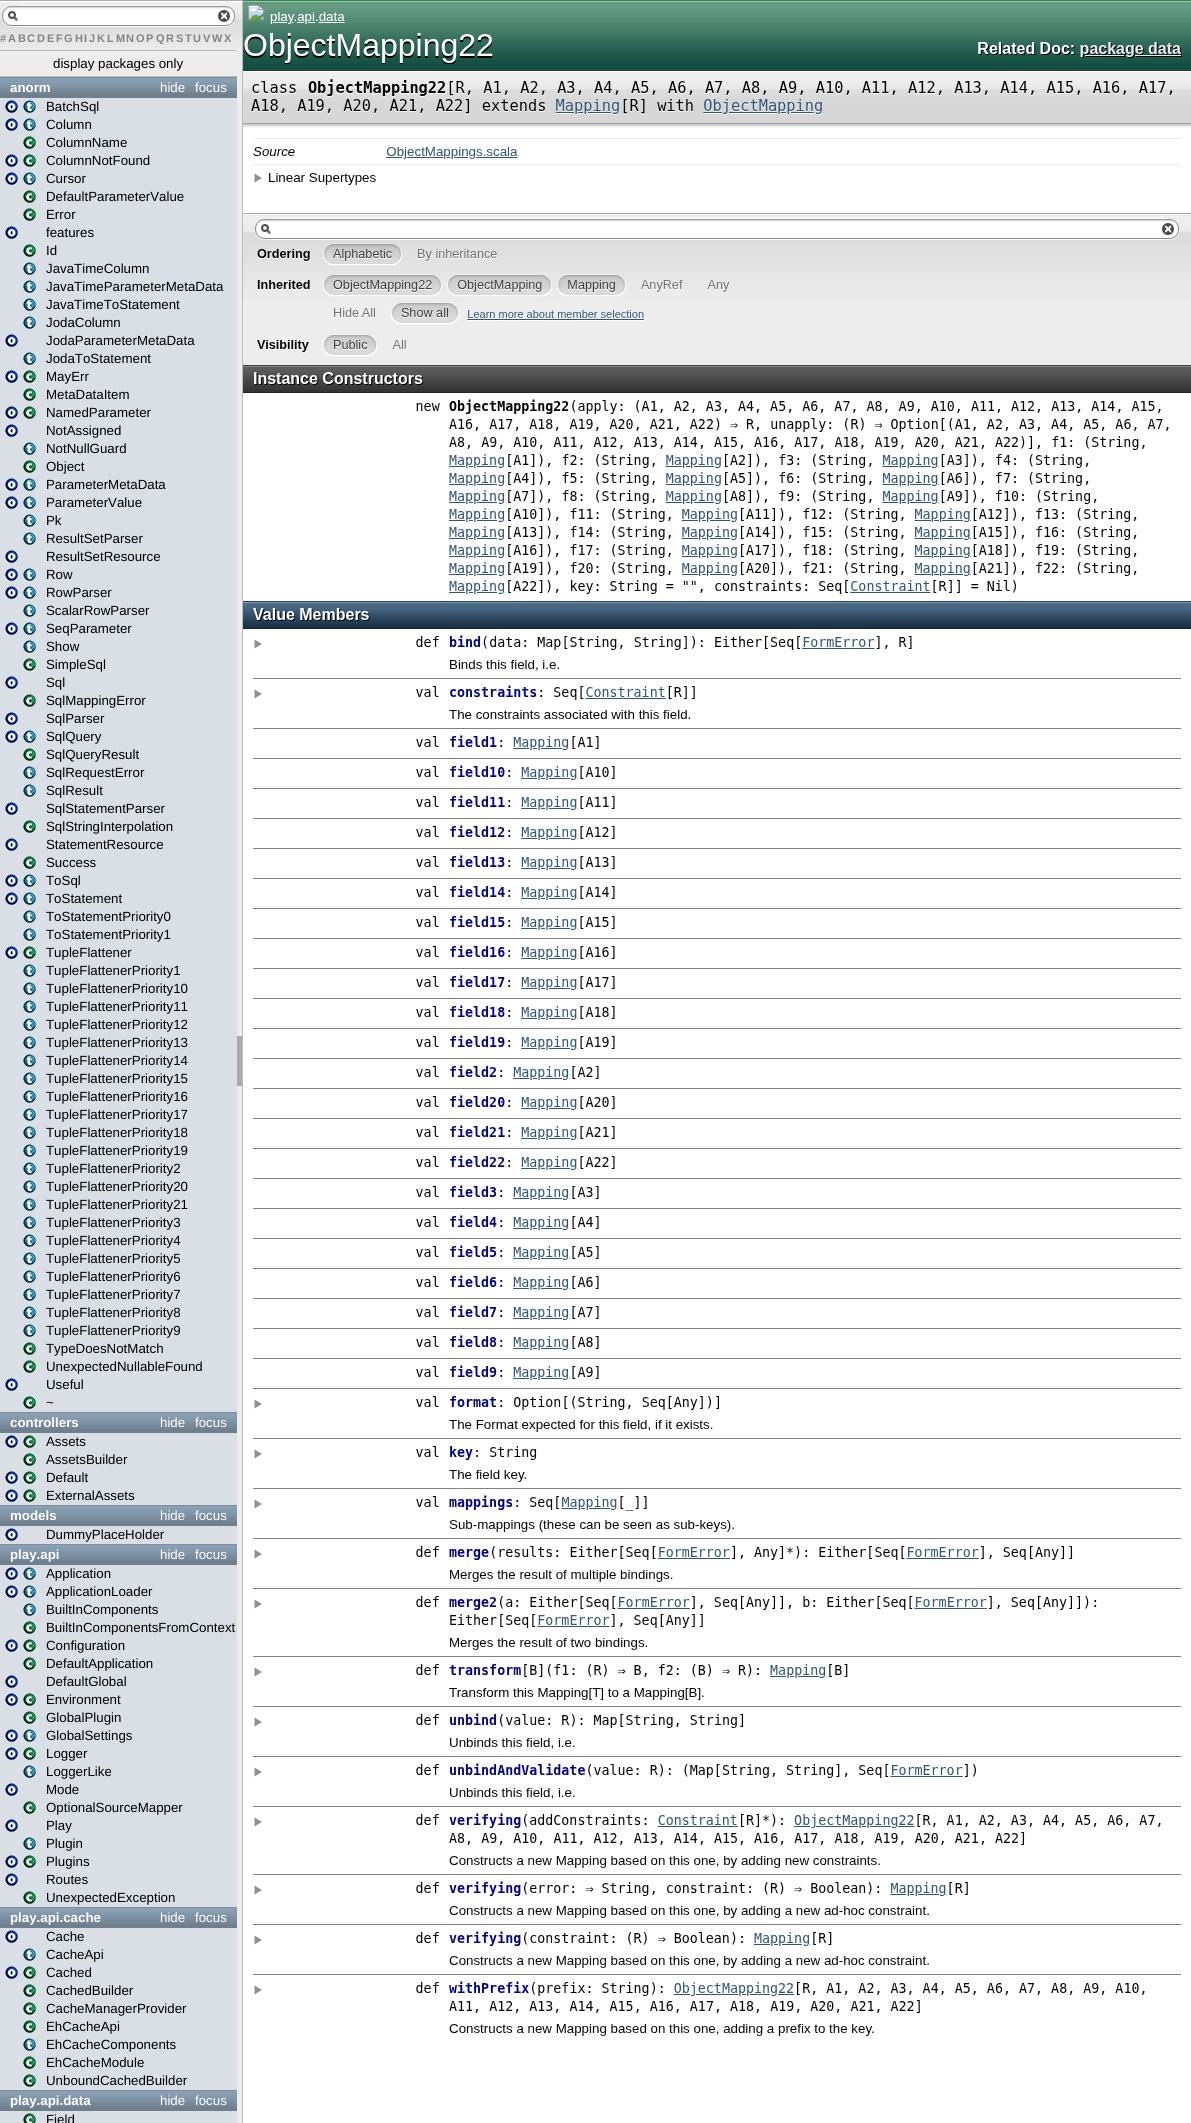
#include <cairo.h>
#include <math.h>
#include <stddef.h>

typedef struct { const char *family; double size; int italic, bold; unsigned color; } style_t;
static cairo_t *ctx;

static void ink(unsigned color) {
    cairo_set_source_rgb(ctx, (color >> 16) / 255.0, (color >> 8 & 255) / 255.0, (color & 255) / 255.0);
}

static void write(double x, double y, const char *s, const style_t *st) {
    cairo_select_font_face(ctx, st->family, st->italic ? CAIRO_FONT_SLANT_ITALIC : CAIRO_FONT_SLANT_NORMAL,
        st->bold ? CAIRO_FONT_WEIGHT_BOLD : CAIRO_FONT_WEIGHT_NORMAL);
    cairo_set_font_size(ctx, st->size);
    ink(st->color);
    cairo_move_to(ctx, x, y);
    cairo_show_text(ctx, s);
}

static void block(double x, double y, double w, double h, unsigned color) {
    ink(color);
    cairo_rectangle(ctx, x, y, w, h);
    cairo_fill(ctx);
}

static void paste(const char *path, double x, double y, double w, double h) {
    cairo_surface_t *image = cairo_image_surface_create_from_png(path);
    cairo_save(ctx);
    cairo_set_source_surface(ctx, image, x, y);
    cairo_rectangle(ctx, x, y, w, h);
    cairo_fill(ctx);
    cairo_restore(ctx);
    cairo_surface_destroy(image);
}

static const style_t s1 = {"Liberation Sans", 11, 0, 1, 0x858484};
static const style_t s2 = {"Liberation Sans", 13.3, 0, 0, 0x000000};
static const style_t s3 = {"Liberation Sans", 13.3, 0, 1, 0xffffff};
static const style_t s4 = {"Liberation Sans", 13.3, 0, 0, 0xffffff};

int main(void) {
    cairo_surface_t *surface = cairo_image_surface_create(CAIRO_FORMAT_RGB24, 1191, 2123);
    ctx = cairo_create(surface);
    cairo_font_options_t *options = cairo_font_options_create();
    cairo_font_options_set_hint_metrics(options, CAIRO_HINT_METRICS_OFF);
    cairo_font_options_set_hint_style(options, CAIRO_HINT_STYLE_NONE);
    cairo_set_font_options(ctx, options);
    cairo_set_miter_limit(ctx, 4);
    ink(0xffffff);
    cairo_paint(ctx);
    block(0, 48, 237, 28, 0xededee);
    paste("pic1.png", 0, 0, 237, 48);
    block(0, 76, 237, 1, 0xbbbbbb);
    paste("pic2.png", 1, 6, 19, 21);
    block(20, 5, 199, 22, 0xffffff);
    paste("pic3.png", 20, 6, 199, 20);
    paste("pic4.png", 218, 6, 18, 21);
    block(0, 50, 237, 1, 0xbbbbbb);
    write(0, 42, "#", &s1);
    write(8, 42, "A", &s1);
    write(18, 42, "B", &s1);
    write(27, 42, "C", &s1);
    write(37, 42, "D", &s1);
    write(47, 42, "E", &s1);
    write(56, 42, "F", &s1);
    write(64, 42, "G", &s1);
    write(75, 42, "H", &s1);
    write(84, 42, "I", &s1);
    write(89, 42, "J", &s1);
    write(97, 42, "K", &s1);
    write(107, 42, "L", &s1);
    write(116, 42, "M", &s1);
    write(126, 42, "N", &s1);
    write(136, 42, "O", &s1);
    write(146, 42, "P", &s1);
    write(156, 42, "Q", &s1);
    write(166, 42, "R", &s1);
    write(176, 42, "S", &s1);
    write(185, 42, "T", &s1);
    write(193, 42, "U", &s1);
    write(203, 42, "V", &s1);
    write(212, 42, "W", &s1);
    write(224, 42, "X", &s1);
    write(53, 68, "display packages only", &s2);
    block(0, 94, 237, 4, 0x6e808e);
    paste("pic5.png", 0, 77, 237, 17);
    write(10, 92, "anorm", &s3);
    write(160, 92, "hide", &s4);
    write(195, 92, "focus", &s4);
    block(0, 98, 237, 1314, 0xdadfe6);
    paste("pic6.png", 5, 100, 13, 13);
    paste("pic7.png", 23, 100, 13, 13);
    write(46, 111, "BatchSql", &s2);
    paste("pic6.png", 5, 118, 13, 13);
    paste("pic7.png", 23, 118, 13, 13);
    write(46, 129, "Column", &s2);
    paste("pic8.png", 23, 136, 13, 13);
    write(46, 147, "ColumnName", &s2);
    paste("pic6.png", 5, 154, 13, 13);
    paste("pic8.png", 23, 154, 13, 13);
    write(46, 165, "ColumnNotFound", &s2);
    paste("pic6.png", 5, 172, 13, 13);
    paste("pic7.png", 23, 172, 13, 13);
    write(46, 183, "Cursor", &s2);
    paste("pic8.png", 23, 190, 13, 13);
    write(46, 201, "DefaultParameterValue", &s2);
    paste("pic8.png", 23, 208, 13, 13);
    write(46, 219, "Error", &s2);
    paste("pic6.png", 5, 226, 13, 13);
    write(46, 237, "features", &s2);
    paste("pic8.png", 23, 244, 13, 13);
    write(46, 255, "Id", &s2);
    paste("pic7.png", 23, 262, 13, 13);
    write(46, 273, "JavaTimeColumn", &s2);
    paste("pic7.png", 23, 280, 13, 13);
    write(46, 291, "JavaTimeParameterMetaData", &s2);
    paste("pic7.png", 23, 298, 13, 13);
    write(46, 309, "JavaTimeToStatement", &s2);
    paste("pic7.png", 23, 316, 13, 13);
    write(46, 327, "JodaColumn", &s2);
    paste("pic6.png", 5, 334, 13, 13);
    write(46, 345, "JodaParameterMetaData", &s2);
    paste("pic7.png", 23, 352, 13, 13);
    write(46, 363, "JodaToStatement", &s2);
    paste("pic6.png", 5, 370, 13, 13);
    paste("pic8.png", 23, 370, 13, 13);
    write(46, 381, "MayErr", &s2);
    paste("pic8.png", 23, 388, 13, 13);
    write(46, 399, "MetaDataItem", &s2);
    paste("pic6.png", 5, 406, 13, 13);
    paste("pic8.png", 23, 406, 13, 13);
    write(46, 417, "NamedParameter", &s2);
    paste("pic6.png", 5, 424, 13, 13);
    write(46, 435, "NotAssigned", &s2);
    paste("pic7.png", 23, 442, 13, 13);
    write(46, 453, "NotNullGuard", &s2);
    paste("pic8.png", 23, 460, 13, 13);
    write(46, 471, "Object", &s2);
    paste("pic6.png", 5, 478, 13, 13);
    paste("pic7.png", 23, 478, 13, 13);
    write(46, 489, "ParameterMetaData", &s2);
    paste("pic6.png", 5, 496, 13, 13);
    paste("pic7.png", 23, 496, 13, 13);
    write(46, 507, "ParameterValue", &s2);
    paste("pic7.png", 23, 514, 13, 13);
    write(46, 525, "Pk", &s2);
    paste("pic7.png", 23, 532, 13, 13);
    write(46, 543, "ResultSetParser", &s2);
    paste("pic6.png", 5, 550, 13, 13);
    write(46, 561, "ResultSetResource", &s2);
    paste("pic6.png", 5, 568, 13, 13);
    paste("pic7.png", 23, 568, 13, 13);
    write(46, 579, "Row", &s2);
    paste("pic6.png", 5, 586, 13, 13);
    paste("pic7.png", 23, 586, 13, 13);
    write(46, 597, "RowParser", &s2);
    paste("pic7.png", 23, 604, 13, 13);
    write(46, 615, "ScalarRowParser", &s2);
    paste("pic6.png", 5, 622, 13, 13);
    paste("pic7.png", 23, 622, 13, 13);
    write(46, 633, "SeqParameter", &s2);
    paste("pic7.png", 23, 640, 13, 13);
    write(46, 651, "Show", &s2);
    paste("pic8.png", 23, 658, 13, 13);
    write(46, 669, "SimpleSql", &s2);
    paste("pic6.png", 5, 676, 13, 13);
    write(46, 687, "Sql", &s2);
    paste("pic8.png", 23, 694, 13, 13);
    write(46, 705, "SqlMappingError", &s2);
    paste("pic6.png", 5, 712, 13, 13);
    write(46, 723, "SqlParser", &s2);
    paste("pic6.png", 5, 730, 13, 13);
    paste("pic7.png", 23, 730, 13, 13);
    write(46, 741, "SqlQuery", &s2);
    paste("pic8.png", 23, 748, 13, 13);
    write(46, 759, "SqlQueryResult", &s2);
    paste("pic7.png", 23, 766, 13, 13);
    write(46, 777, "SqlRequestError", &s2);
    paste("pic7.png", 23, 784, 13, 13);
    write(46, 795, "SqlResult", &s2);
    paste("pic6.png", 5, 802, 13, 13);
    write(46, 813, "SqlStatementParser", &s2);
    paste("pic8.png", 23, 820, 13, 13);
    write(46, 831, "SqlStringInterpolation", &s2);
    paste("pic6.png", 5, 838, 13, 13);
    write(46, 849, "StatementResource", &s2);
    paste("pic8.png", 23, 856, 13, 13);
    write(46, 867, "Success", &s2);
    paste("pic6.png", 5, 874, 13, 13);
    paste("pic7.png", 23, 874, 13, 13);
    write(46, 885, "ToSql", &s2);
    paste("pic6.png", 5, 892, 13, 13);
    paste("pic7.png", 23, 892, 13, 13);
    write(46, 903, "ToStatement", &s2);
    paste("pic7.png", 23, 910, 13, 13);
    write(46, 921, "ToStatementPriority0", &s2);
    paste("pic7.png", 23, 928, 13, 13);
    write(46, 939, "ToStatementPriority1", &s2);
    paste("pic6.png", 5, 946, 13, 13);
    paste("pic8.png", 23, 946, 13, 13);
    write(46, 957, "TupleFlattener", &s2);
    paste("pic7.png", 23, 964, 13, 13);
    write(46, 975, "TupleFlattenerPriority1", &s2);
    paste("pic7.png", 23, 982, 13, 13);
    write(46, 993, "TupleFlattenerPriority10", &s2);
    paste("pic7.png", 23, 1000, 13, 13);
    write(46, 1011, "TupleFlattenerPriority11", &s2);
    paste("pic7.png", 23, 1018, 13, 13);
    write(46, 1029, "TupleFlattenerPriority12", &s2);
    paste("pic7.png", 23, 1036, 13, 13);
    write(46, 1047, "TupleFlattenerPriority13", &s2);
    paste("pic7.png", 23, 1054, 13, 13);
    write(46, 1065, "TupleFlattenerPriority14", &s2);
    paste("pic7.png", 23, 1072, 13, 13);
    write(46, 1083, "TupleFlattenerPriority15", &s2);
    paste("pic7.png", 23, 1090, 13, 13);
    write(46, 1101, "TupleFlattenerPriority16", &s2);
    paste("pic7.png", 23, 1108, 13, 13);
    write(46, 1119, "TupleFlattenerPriority17", &s2);
    paste("pic7.png", 23, 1126, 13, 13);
    write(46, 1137, "TupleFlattenerPriority18", &s2);
    paste("pic7.png", 23, 1144, 13, 13);
    write(46, 1155, "TupleFlattenerPriority19", &s2);
    paste("pic7.png", 23, 1162, 13, 13);
    write(46, 1173, "TupleFlattenerPriority2", &s2);
    paste("pic7.png", 23, 1180, 13, 13);
    write(46, 1191, "TupleFlattenerPriority20", &s2);
    paste("pic7.png", 23, 1198, 13, 13);
    write(46, 1209, "TupleFlattenerPriority21", &s2);
    paste("pic7.png", 23, 1216, 13, 13);
    write(46, 1227, "TupleFlattenerPriority3", &s2);
    paste("pic7.png", 23, 1234, 13, 13);
    write(46, 1245, "TupleFlattenerPriority4", &s2);
    paste("pic7.png", 23, 1252, 13, 13);
    write(46, 1263, "TupleFlattenerPriority5", &s2);
    paste("pic7.png", 23, 1270, 13, 13);
    write(46, 1281, "TupleFlattenerPriority6", &s2);
    paste("pic7.png", 23, 1288, 13, 13);
    write(46, 1299, "TupleFlattenerPriority7", &s2);
    paste("pic7.png", 23, 1306, 13, 13);
    write(46, 1317, "TupleFlattenerPriority8", &s2);
    paste("pic7.png", 23, 1324, 13, 13);
    write(46, 1335, "TupleFlattenerPriority9", &s2);
    paste("pic8.png", 23, 1342, 13, 13);
    write(46, 1353, "TypeDoesNotMatch", &s2);
    paste("pic8.png", 23, 1360, 13, 13);
    write(46, 1371, "UnexpectedNullableFound", &s2);
    paste("pic6.png", 5, 1378, 13, 13);
    write(46, 1389, "Useful", &s2);
    paste("pic8.png", 23, 1396, 13, 13);
    write(46, 1407, "~", &s2);
    block(0, 1429, 237, 4, 0x6e808e);
    paste("pic5.png", 0, 1412, 237, 17);
    write(10, 1427, "controllers", &s3);
    write(160, 1427, "hide", &s4);
    write(195, 1427, "focus", &s4);
    block(0, 1433, 237, 72, 0xdadfe6);
    paste("pic6.png", 5, 1435, 13, 13);
    paste("pic8.png", 23, 1435, 13, 13);
    write(46, 1446, "Assets", &s2);
    paste("pic8.png", 23, 1453, 13, 13);
    write(46, 1464, "AssetsBuilder", &s2);
    paste("pic6.png", 5, 1471, 13, 13);
    paste("pic8.png", 23, 1471, 13, 13);
    write(46, 1482, "Default", &s2);
    paste("pic6.png", 5, 1489, 13, 13);
    paste("pic8.png", 23, 1489, 13, 13);
    write(46, 1500, "ExternalAssets", &s2);
    block(0, 1522, 237, 4, 0x6e808e);
    paste("pic5.png", 0, 1505, 237, 17);
    write(10, 1520, "models", &s3);
    write(160, 1520, "hide", &s4);
    write(195, 1520, "focus", &s4);
    block(0, 1526, 237, 18, 0xdadfe6);
    paste("pic6.png", 5, 1528, 13, 13);
    write(46, 1539, "DummyPlaceHolder", &s2);
    block(0, 1561, 237, 4, 0x6e808e);
    paste("pic5.png", 0, 1544, 237, 17);
    write(10, 1559, "play.api", &s3);
    write(160, 1559, "hide", &s4);
    write(195, 1559, "focus", &s4);
    block(0, 1565, 237, 342, 0xdadfe6);
    paste("pic6.png", 5, 1567, 13, 13);
    paste("pic7.png", 23, 1567, 13, 13);
    write(46, 1578, "Application", &s2);
    paste("pic6.png", 5, 1585, 13, 13);
    paste("pic7.png", 23, 1585, 13, 13);
    write(46, 1596, "ApplicationLoader", &s2);
    paste("pic7.png", 23, 1603, 13, 13);
    write(46, 1614, "BuiltInComponents", &s2);
    paste("pic8.png", 23, 1621, 13, 13);
    write(46, 1632, "BuiltInComponentsFromContext", &s2);
    paste("pic6.png", 5, 1639, 13, 13);
    paste("pic8.png", 23, 1639, 13, 13);
    write(46, 1650, "Configuration", &s2);
    paste("pic8.png", 23, 1657, 13, 13);
    write(46, 1668, "DefaultApplication", &s2);
    paste("pic6.png", 5, 1675, 13, 13);
    write(46, 1686, "DefaultGlobal", &s2);
    paste("pic6.png", 5, 1693, 13, 13);
    paste("pic8.png", 23, 1693, 13, 13);
    write(46, 1704, "Environment", &s2);
    paste("pic8.png", 23, 1711, 13, 13);
    write(46, 1722, "GlobalPlugin", &s2);
    paste("pic6.png", 5, 1729, 13, 13);
    paste("pic7.png", 23, 1729, 13, 13);
    write(46, 1740, "GlobalSettings", &s2);
    paste("pic6.png", 5, 1747, 13, 13);
    paste("pic8.png", 23, 1747, 13, 13);
    write(46, 1758, "Logger", &s2);
    paste("pic7.png", 23, 1765, 13, 13);
    write(46, 1776, "LoggerLike", &s2);
    paste("pic6.png", 5, 1783, 13, 13);
    write(46, 1794, "Mode", &s2);
    paste("pic8.png", 23, 1801, 13, 13);
    write(46, 1812, "OptionalSourceMapper", &s2);
    paste("pic6.png", 5, 1819, 13, 13);
    write(46, 1830, "Play", &s2);
    paste("pic7.png", 23, 1837, 13, 13);
    write(46, 1848, "Plugin", &s2);
    paste("pic6.png", 5, 1855, 13, 13);
    paste("pic8.png", 23, 1855, 13, 13);
    write(46, 1866, "Plugins", &s2);
    paste("pic6.png", 5, 1873, 13, 13);
    write(46, 1884, "Routes", &s2);
    paste("pic8.png", 23, 1891, 13, 13);
    write(46, 1902, "UnexpectedException", &s2);
    block(0, 1924, 237, 4, 0x6e808e);
    paste("pic5.png", 0, 1907, 237, 17);
    write(10, 1922, "play.api.cache", &s3);
    write(160, 1922, "hide", &s4);
    write(195, 1922, "focus", &s4);
    block(0, 1928, 237, 162, 0xdadfe6);
    paste("pic6.png", 5, 1930, 13, 13);
    write(46, 1941, "Cache", &s2);
    paste("pic7.png", 23, 1948, 13, 13);
    write(46, 1959, "CacheApi", &s2);
    paste("pic6.png", 5, 1966, 13, 13);
    paste("pic8.png", 23, 1966, 13, 13);
    write(46, 1977, "Cached", &s2);
    paste("pic8.png", 23, 1984, 13, 13);
    write(46, 1995, "CachedBuilder", &s2);
    paste("pic8.png", 23, 2002, 13, 13);
    write(46, 2013, "CacheManagerProvider", &s2);
    paste("pic8.png", 23, 2020, 13, 13);
    write(46, 2031, "EhCacheApi", &s2);
    paste("pic7.png", 23, 2038, 13, 13);
    write(46, 2049, "EhCacheComponents", &s2);
    paste("pic8.png", 23, 2056, 13, 13);
    write(46, 2067, "EhCacheModule", &s2);
    paste("pic8.png", 23, 2074, 13, 13);
    write(46, 2085, "UnboundCachedBuilder", &s2);
    block(0, 2107, 237, 4, 0x6e808e);
    paste("pic5.png", 0, 2090, 237, 17);
    write(10, 2105, "play.api.data", &s3);
    write(160, 2105, "hide", &s4);
    write(195, 2105, "focus", &s4);
    block(0, 2111, 237, 12, 0xdadfe6);
    paste("pic9.png", 23, 2113, 13, 10);
    write(46, 2124, "Field", &s2);
    block(237, 48, 5, 2075, 0xededee);
    paste("pic10.png", 237, 0, 5, 48);
    block(242, 0, 1, 2123, 0xbbbbbb);
    block(237, 1036, 5, 50, 0xaaaaaa);
    paste("pic11.png", 243, 0, 948, 2036);
    cairo_surface_write_to_png(surface, "screenshot.png");
    cairo_font_options_destroy(options);
    cairo_destroy(ctx);
    cairo_surface_destroy(surface);
    return 0;
}
